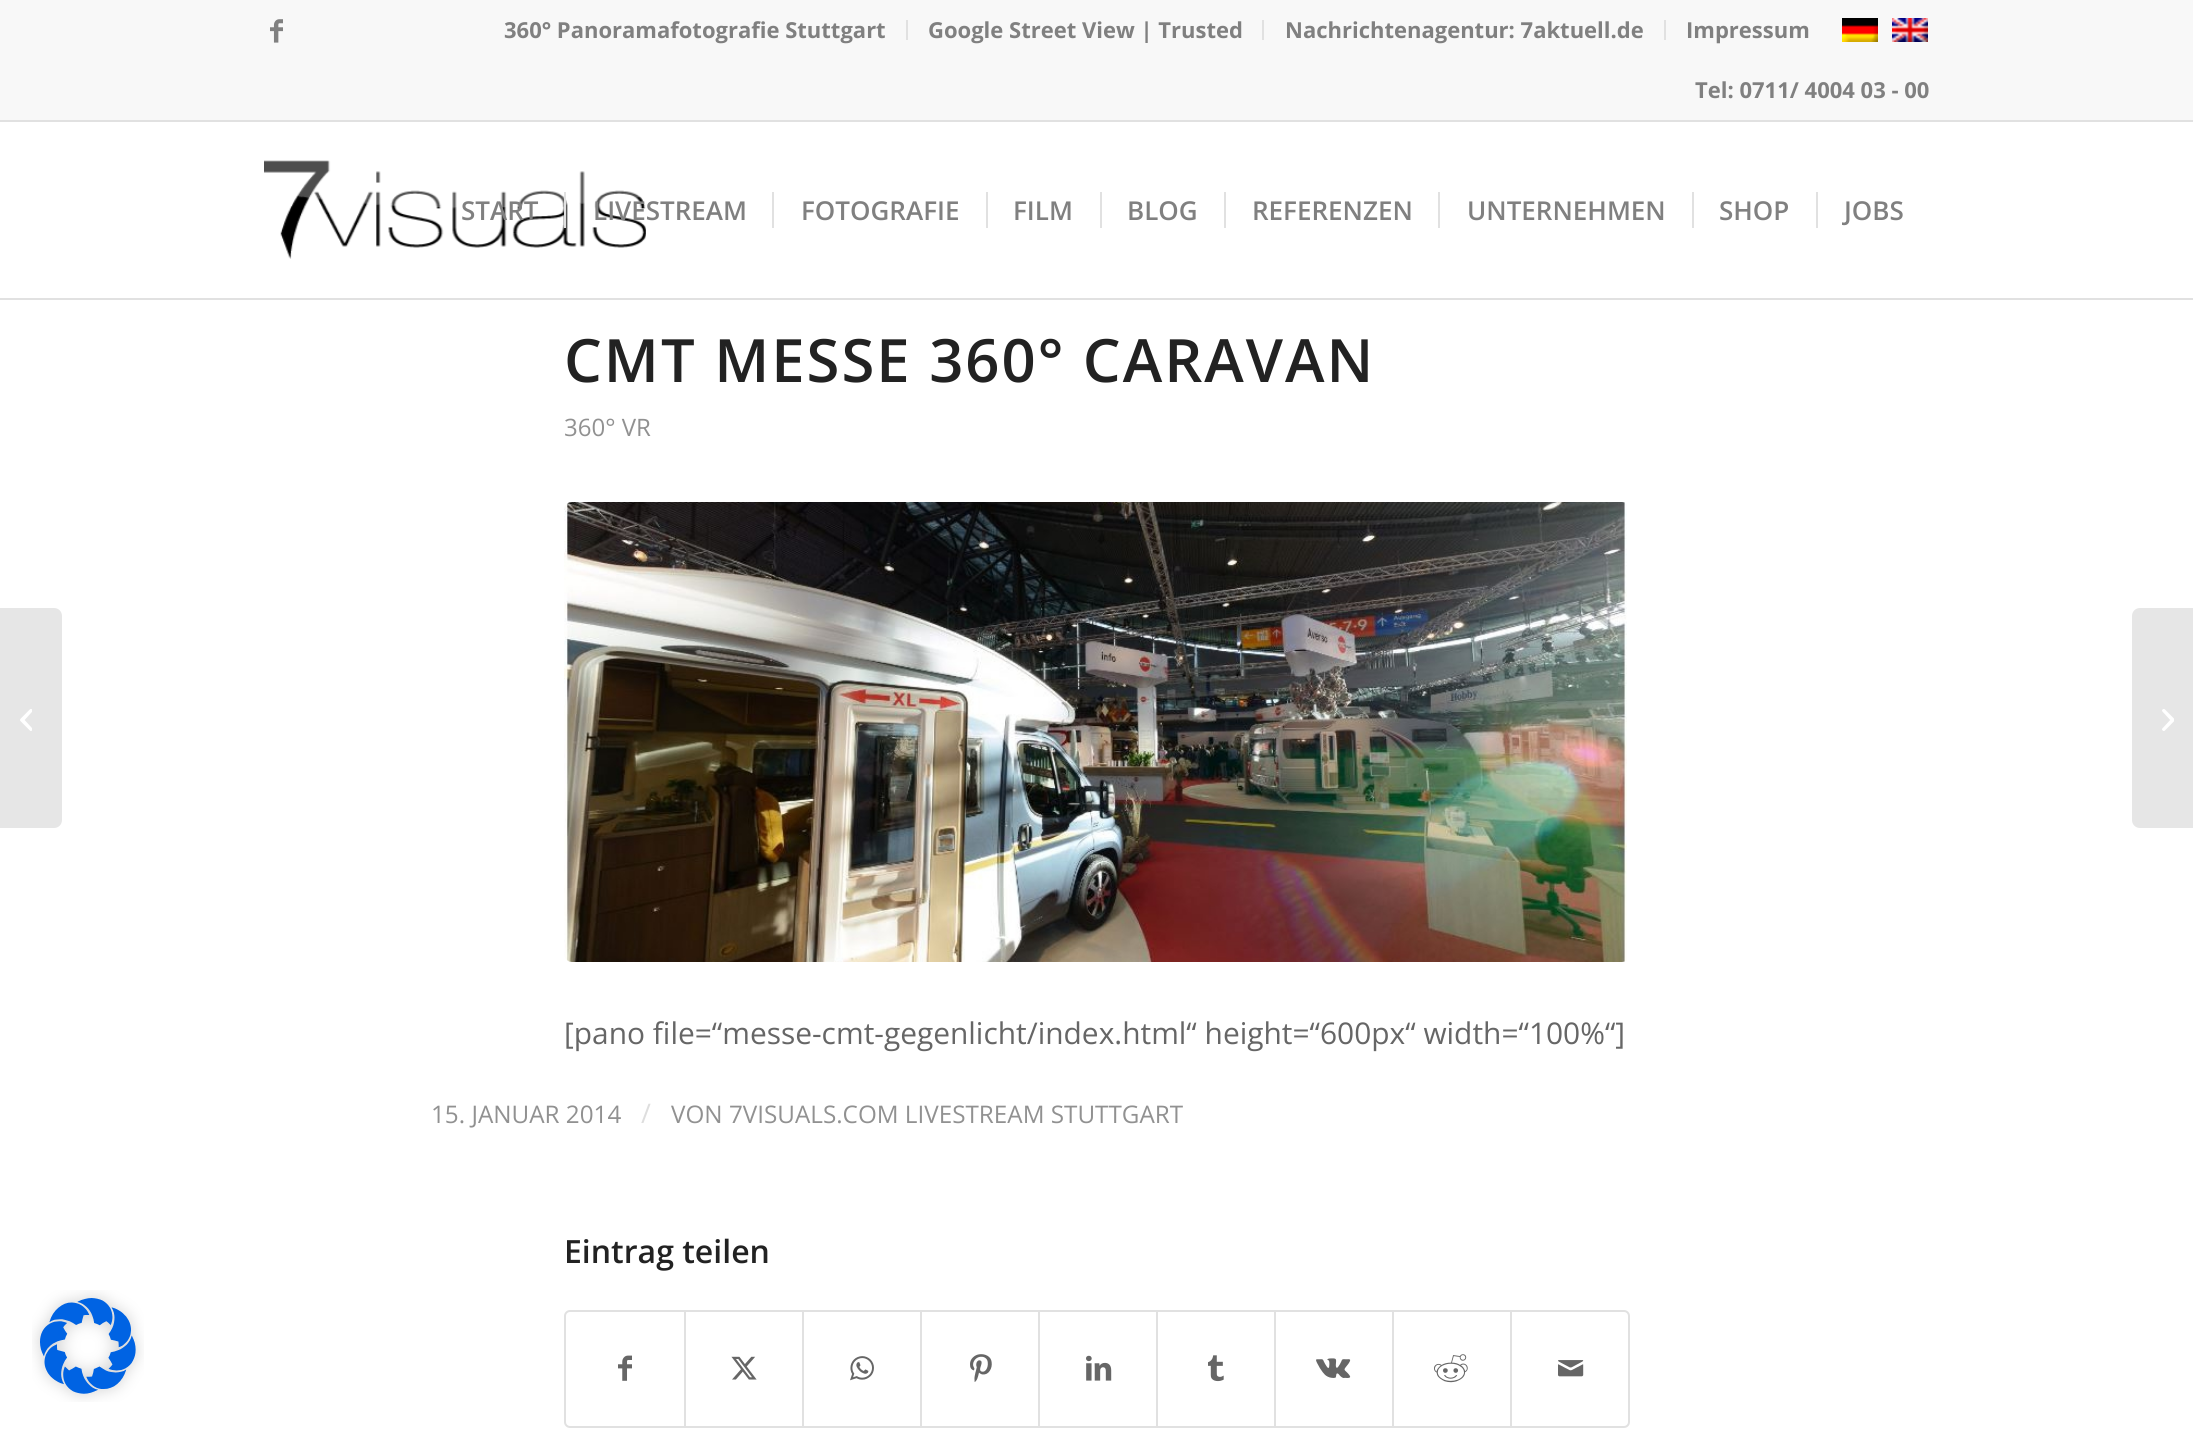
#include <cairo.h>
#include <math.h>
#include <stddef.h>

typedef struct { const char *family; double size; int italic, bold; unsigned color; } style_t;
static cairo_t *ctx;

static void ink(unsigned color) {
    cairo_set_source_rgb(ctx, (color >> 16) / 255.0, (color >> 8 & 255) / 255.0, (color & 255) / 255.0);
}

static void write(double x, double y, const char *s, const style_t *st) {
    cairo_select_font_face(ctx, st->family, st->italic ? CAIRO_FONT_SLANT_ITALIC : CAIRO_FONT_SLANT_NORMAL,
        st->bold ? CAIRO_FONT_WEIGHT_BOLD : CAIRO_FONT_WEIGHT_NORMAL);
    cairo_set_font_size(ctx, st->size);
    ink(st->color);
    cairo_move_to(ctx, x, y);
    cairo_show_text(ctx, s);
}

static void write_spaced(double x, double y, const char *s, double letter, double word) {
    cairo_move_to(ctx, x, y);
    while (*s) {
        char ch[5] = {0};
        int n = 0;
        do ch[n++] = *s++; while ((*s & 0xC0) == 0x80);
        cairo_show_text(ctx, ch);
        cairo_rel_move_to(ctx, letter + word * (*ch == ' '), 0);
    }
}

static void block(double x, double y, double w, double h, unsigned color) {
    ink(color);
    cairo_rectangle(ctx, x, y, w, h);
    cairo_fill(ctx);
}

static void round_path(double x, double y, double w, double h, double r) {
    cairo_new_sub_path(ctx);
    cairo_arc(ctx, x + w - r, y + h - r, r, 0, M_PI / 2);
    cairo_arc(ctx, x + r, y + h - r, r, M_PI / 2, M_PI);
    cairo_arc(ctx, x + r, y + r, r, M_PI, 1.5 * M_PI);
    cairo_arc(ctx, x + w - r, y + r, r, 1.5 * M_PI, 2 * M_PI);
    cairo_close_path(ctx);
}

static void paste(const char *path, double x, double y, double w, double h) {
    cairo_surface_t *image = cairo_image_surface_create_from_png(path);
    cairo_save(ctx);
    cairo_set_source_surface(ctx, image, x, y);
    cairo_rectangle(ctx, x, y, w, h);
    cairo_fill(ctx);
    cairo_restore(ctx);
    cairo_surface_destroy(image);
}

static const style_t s1 = {"Open Sans", 22, 0, 1, 0x808080};
static const style_t s2 = {"Open Sans SemiBold", 26, 0, 0, 0x808080};
static const style_t s3 = {"Open Sans", 24, 0, 0, 0x919191};
static const style_t s4 = {"Open Sans", 29.9, 0, 0, 0x666666};
static const style_t s5 = {"Open Sans", 24.25, 0, 0, 0x919191};
static const style_t s6 = {"Open Sans", 27, 0, 0, 0xdedede};
static const style_t s7 = {"Open Sans SemiBold", 32, 0, 0, 0x222222};

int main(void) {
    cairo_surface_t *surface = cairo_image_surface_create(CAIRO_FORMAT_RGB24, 2193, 1434);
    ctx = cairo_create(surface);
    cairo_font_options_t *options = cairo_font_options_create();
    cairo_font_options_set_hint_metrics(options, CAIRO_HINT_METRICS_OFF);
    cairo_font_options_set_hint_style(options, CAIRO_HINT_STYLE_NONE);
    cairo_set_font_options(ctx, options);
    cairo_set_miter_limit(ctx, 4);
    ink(0xffffff);
    cairo_paint(ctx);
    block(0, 0, 2193, 120, 0xf8f8f8);
    block(0, 120, 2193, 2, 0xe1e1e1);
    paste("pic1.png", 270, 19, 13, 24);
    block(906, 20, 2, 20, 0xe1e1e1);
    write(504, 38, "360° Panoramafotografie Stuttgart", &s1);
    block(1262, 20, 2, 20, 0xe1e1e1);
    write(928, 38, "Google Street View | Trusted", &s1);
    block(1664, 20, 2, 20, 0xe1e1e1);
    write(1285, 38, "Nachrichtenagentur: 7aktuell.de", &s1);
    write(1686, 38, "Impressum", &s1);
    paste("pic2.png", 1842, 18, 36, 24);
    paste("pic3.png", 1892, 18, 36, 24);
    write(1695, 98, "Tel: 0711/ 4004 03 - 00", &s1);
    block(0, 298, 2193, 2, 0xe1e1e1);
    paste("pic4.png", 264, 160, 382, 99);
    write(461, 220, "START", &s2);
    write(593, 220, "LIVESTREAM", &s2);
    block(564, 192, 2, 36, 0xe1e1e1);
    write(801, 220, "FOTOGRAFIE", &s2);
    block(772, 192, 2, 36, 0xe1e1e1);
    write(1013, 220, "FILM", &s2);
    block(986, 192, 2, 36, 0xe1e1e1);
    write(1127, 220, "BLOG", &s2);
    block(1100, 192, 2, 36, 0xe1e1e1);
    write(1252, 220, "REFERENZEN", &s2);
    block(1224, 192, 2, 36, 0xe1e1e1);
    write(1467, 220, "UNTERNEHMEN", &s2);
    block(1438, 192, 2, 36, 0xe1e1e1);
    write(1719, 220, "SHOP", &s2);
    block(1692, 192, 2, 36, 0xe1e1e1);
    write(1844, 220, "JOBS", &s2);
    block(1816, 192, 2, 36, 0xe1e1e1);
    ink(0xe6e6e6);
    cairo_new_path(ctx);
    cairo_move_to(ctx, 0, 608);
    cairo_line_to(ctx, 54, 608);
    cairo_curve_to(ctx, 58.5, 608, 62, 611.5, 62, 616);
    cairo_line_to(ctx, 62, 820);
    cairo_curve_to(ctx, 62, 824.5, 58.5, 828, 54, 828);
    cairo_line_to(ctx, 0, 828);
    cairo_close_path(ctx);
    cairo_fill(ctx);
    paste("pic5.png", 20, 709, 12, 22);
    cairo_set_font_size(ctx, 59.75);
    ink(0x222222);
    write_spaced(564, 382, "CMT MESSE 360° CARAVAN", 2, 0);
    write(564, 436, "360° VR", &s3);
    paste("pic6.png", 564, 502, 1063, 460);
    write(564, 1044, "[pano file=“messe-cmt-gegenlicht/index.html“ height=“600px“ width=“100%“]", &s4);
    write(431, 1123, "15. JANUAR 2014", &s5);
    write(641, 1123, "/", &s6);
    write(671, 1123, "VON 7VISUALS.COM LIVESTREAM STUTTGART", &s5);
    write(564, 1263, "Eintrag teilen", &s7);
    round_path(565, 1311, 1064, 116, 5);
    ink(0xe1e1e1);
    cairo_stroke(ctx);
    paste("pic7.png", 618, 1355, 14, 26);
    block(684, 1312, 2, 114, 0xe1e1e1);
    paste("pic8.png", 731, 1356, 26, 24);
    block(802, 1312, 2, 114, 0xe1e1e1);
    paste("pic9.png", 850, 1356, 24, 25);
    block(920, 1312, 2, 114, 0xe1e1e1);
    paste("pic10.png", 970, 1354, 22, 28);
    block(1038, 1312, 2, 114, 0xe1e1e1);
    paste("pic11.png", 1086, 1355, 26, 26);
    block(1156, 1312, 2, 114, 0xe1e1e1);
    paste("pic12.png", 1208, 1355, 16, 27);
    block(1274, 1312, 2, 114, 0xe1e1e1);
    paste("pic13.png", 1316, 1358, 35, 20);
    block(1392, 1312, 2, 114, 0xe1e1e1);
    paste("pic14.png", 1434, 1354, 34, 29);
    block(1510, 1312, 2, 114, 0xe1e1e1);
    paste("pic15.png", 1558, 1360, 26, 17);
    ink(0xe6e6e6);
    cairo_new_path(ctx);
    cairo_move_to(ctx, 2140, 608);
    cairo_line_to(ctx, 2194, 608);
    cairo_line_to(ctx, 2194, 828);
    cairo_line_to(ctx, 2140, 828);
    cairo_curve_to(ctx, 2135.5, 828, 2132, 824.5, 2132, 820);
    cairo_line_to(ctx, 2132, 616);
    cairo_curve_to(ctx, 2132, 611.5, 2135.5, 608, 2140, 608);
    cairo_close_path(ctx);
    cairo_fill(ctx);
    paste("pic16.png", 2162, 709, 12, 22);
    paste("pic17.png", 32, 1290, 112, 112);
    cairo_surface_write_to_png(surface, "screenshot.png");
    cairo_font_options_destroy(options);
    cairo_destroy(ctx);
    cairo_surface_destroy(surface);
    return 0;
}
